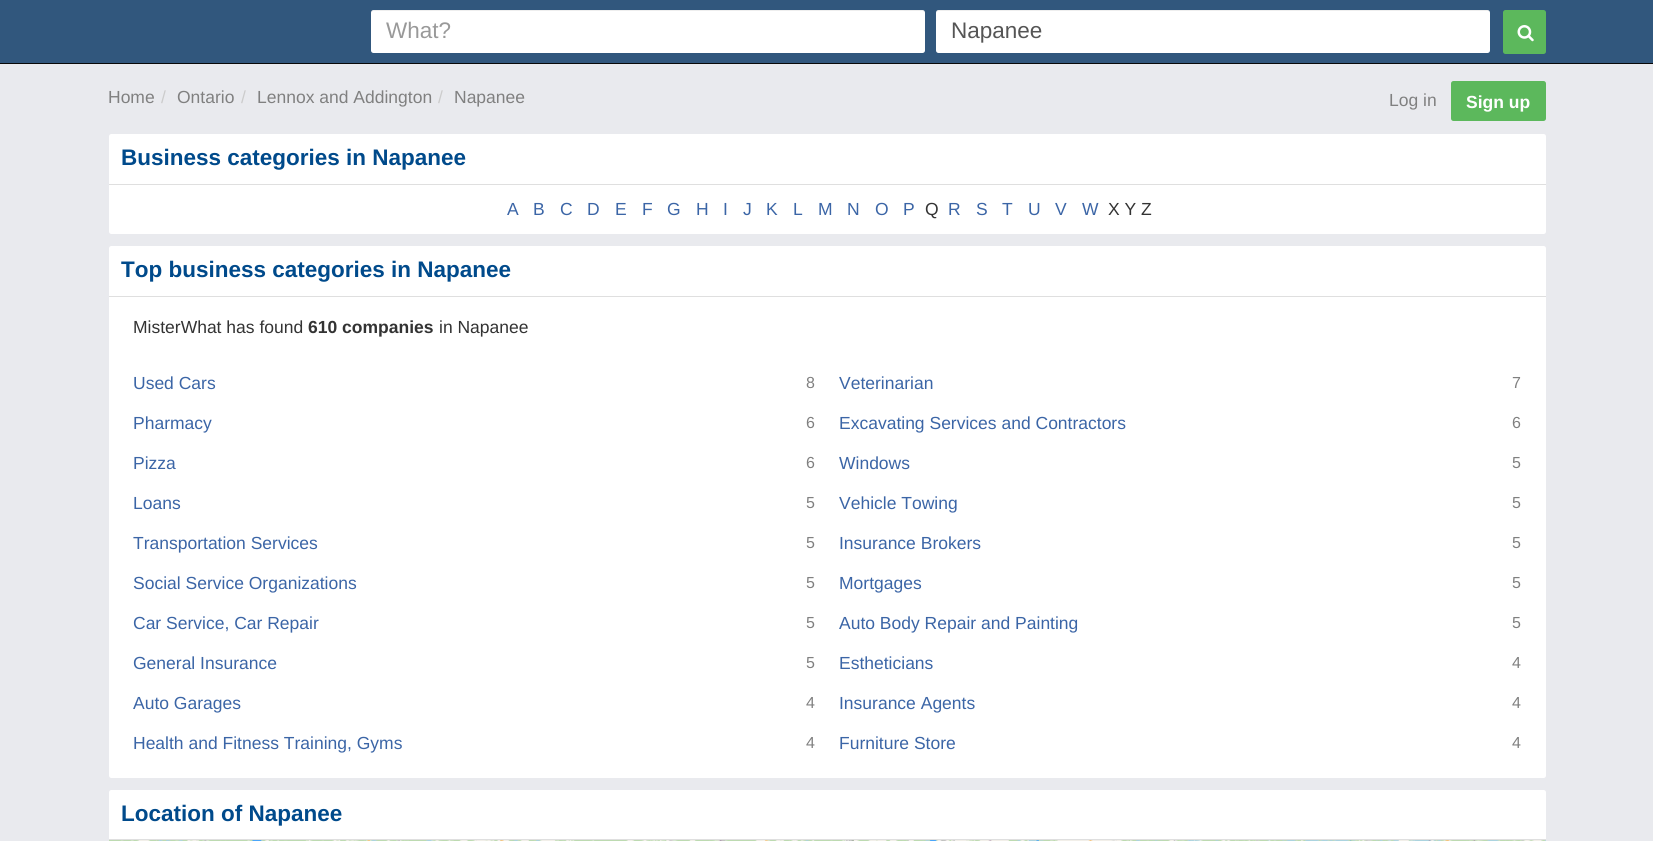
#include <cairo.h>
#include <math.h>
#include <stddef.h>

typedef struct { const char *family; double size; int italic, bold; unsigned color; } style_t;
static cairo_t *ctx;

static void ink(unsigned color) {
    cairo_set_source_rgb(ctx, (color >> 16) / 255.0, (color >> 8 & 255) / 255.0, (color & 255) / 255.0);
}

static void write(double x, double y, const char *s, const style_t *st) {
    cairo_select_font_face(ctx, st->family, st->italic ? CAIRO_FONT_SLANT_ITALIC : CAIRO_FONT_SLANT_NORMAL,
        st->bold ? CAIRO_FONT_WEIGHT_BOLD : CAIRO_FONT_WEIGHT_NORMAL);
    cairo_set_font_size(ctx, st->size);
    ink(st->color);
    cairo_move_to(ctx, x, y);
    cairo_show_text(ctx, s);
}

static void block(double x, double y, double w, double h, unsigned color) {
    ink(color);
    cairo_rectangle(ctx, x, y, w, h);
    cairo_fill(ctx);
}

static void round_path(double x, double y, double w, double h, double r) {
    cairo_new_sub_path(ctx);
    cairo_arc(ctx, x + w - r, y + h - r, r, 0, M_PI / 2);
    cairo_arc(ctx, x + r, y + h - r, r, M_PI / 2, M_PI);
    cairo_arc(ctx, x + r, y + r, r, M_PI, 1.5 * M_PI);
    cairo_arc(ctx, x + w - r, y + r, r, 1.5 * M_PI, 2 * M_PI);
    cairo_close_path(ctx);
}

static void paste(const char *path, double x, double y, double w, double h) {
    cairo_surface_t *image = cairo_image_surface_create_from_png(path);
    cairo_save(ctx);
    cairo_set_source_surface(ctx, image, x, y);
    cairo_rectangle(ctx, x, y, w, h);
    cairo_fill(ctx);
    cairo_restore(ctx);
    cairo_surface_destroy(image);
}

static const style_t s1 = {"Liberation Sans", 22.5, 0, 0, 0x999999};
static const style_t s2 = {"Liberation Sans", 22.5, 0, 0, 0x555555};
static const style_t s3 = {"Liberation Sans", 17.5, 0, 0, 0x808080};
static const style_t s4 = {"Liberation Sans", 17.5, 0, 0, 0xcccccc};
static const style_t s5 = {"Liberation Sans", 17.5, 0, 1, 0xffffff};
static const style_t s6 = {"Liberation Sans", 22.5, 0, 1, 0x004a8b};
static const style_t s7 = {"Liberation Sans", 17.5, 0, 0, 0x3b65a6};
static const style_t s8 = {"Liberation Sans", 17.5, 0, 0, 0x333333};
static const style_t s9 = {"Liberation Sans", 17.5, 0, 1, 0x333333};
static const style_t s10 = {"Liberation Sans", 16, 0, 0, 0x808080};

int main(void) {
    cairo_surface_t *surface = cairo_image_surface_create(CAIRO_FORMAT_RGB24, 1653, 841);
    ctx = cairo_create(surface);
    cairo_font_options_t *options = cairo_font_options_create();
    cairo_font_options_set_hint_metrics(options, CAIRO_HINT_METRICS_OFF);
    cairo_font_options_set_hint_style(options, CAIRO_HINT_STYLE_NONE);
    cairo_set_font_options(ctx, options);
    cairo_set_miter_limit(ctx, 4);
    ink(0xe9eaee);
    cairo_paint(ctx);
    block(0, 0, 1653, 63, 0x31577d);
    block(0, 63, 1653, 1, 0x080808);
    ink(0xffffff);
    round_path(371, 10, 554, 43, 2.5);
    cairo_fill(ctx);
    cairo_set_source_rgba(ctx, 0, 0, 0, 0.07);
    cairo_new_path(ctx);
    cairo_move_to(ctx, 374, 11);
    cairo_line_to(ctx, 922, 11);
    cairo_curve_to(ctx, 924, 11, 925, 12, 925, 14);
    cairo_line_to(ctx, 925, 12);
    cairo_curve_to(ctx, 925, 11, 924, 10, 922, 10);
    cairo_line_to(ctx, 374, 10);
    cairo_curve_to(ctx, 372, 10, 371, 11, 371, 12);
    cairo_line_to(ctx, 371, 14);
    cairo_curve_to(ctx, 371, 12, 372, 11, 374, 11);
    cairo_close_path(ctx);
    cairo_fill(ctx);
    write(386, 38, "What?", &s1);
    ink(0xffffff);
    round_path(936, 10, 554, 43, 2.5);
    cairo_fill(ctx);
    cairo_set_source_rgba(ctx, 0, 0, 0, 0.07);
    cairo_new_path(ctx);
    cairo_move_to(ctx, 939, 11);
    cairo_line_to(ctx, 1488, 11);
    cairo_curve_to(ctx, 1489, 11, 1490, 12, 1490, 14);
    cairo_line_to(ctx, 1490, 12);
    cairo_curve_to(ctx, 1490, 11, 1489, 10, 1488, 10);
    cairo_line_to(ctx, 938, 10);
    cairo_curve_to(ctx, 937, 10, 936, 11, 936, 12);
    cairo_line_to(ctx, 936, 14);
    cairo_curve_to(ctx, 936, 12, 937, 11, 939, 11);
    cairo_close_path(ctx);
    cairo_fill(ctx);
    write(951, 38, "Napanee", &s2);
    ink(0x5cb85c);
    round_path(1503, 10, 43, 44, 2.5);
    cairo_fill(ctx);
    paste("pic1.png", 1517, 25, 17, 17);
    write(108, 103, "Home", &s3);
    write(161, 103, "/", &s4);
    write(177, 103, "Ontario", &s3);
    write(241, 103, "/", &s4);
    write(257, 103, "Lennox and Addington", &s3);
    write(438, 103, "/", &s4);
    write(454, 103, "Napanee", &s3);
    write(1389, 106, "Log in", &s3);
    ink(0x5cb85c);
    round_path(1451, 81, 95, 40, 2.5);
    cairo_fill(ctx);
    write(1466, 108, "Sign up", &s5);
    cairo_new_path(ctx);
    cairo_move_to(ctx, 111.5, 134);
    cairo_line_to(ctx, 1543.5, 134);
    cairo_curve_to(ctx, 1545, 134, 1546, 135, 1546, 136.5);
    cairo_line_to(ctx, 1546, 185);
    cairo_line_to(ctx, 109, 185);
    cairo_line_to(ctx, 109, 136.5);
    cairo_curve_to(ctx, 109, 135, 110, 134, 111.5, 134);
    cairo_close_path(ctx);
    cairo_fill(ctx);
    block(109, 184, 1437, 1, 0xdfdfdf);
    write(121, 165, "Business categories in Napanee", &s6);
    ink(0xffffff);
    cairo_new_path(ctx);
    cairo_move_to(ctx, 109, 185);
    cairo_line_to(ctx, 1546, 185);
    cairo_line_to(ctx, 1546, 231.5);
    cairo_curve_to(ctx, 1546, 233, 1545, 234, 1543.5, 234);
    cairo_line_to(ctx, 111.5, 234);
    cairo_curve_to(ctx, 110, 234, 109, 233, 109, 231.5);
    cairo_close_path(ctx);
    cairo_fill(ctx);
    write(507, 215, "A", &s7);
    write(533, 215, "B", &s7);
    write(560, 215, "C", &s7);
    write(587, 215, "D", &s7);
    write(615, 215, "E", &s7);
    write(642, 215, "F", &s7);
    write(667, 215, "G", &s7);
    write(696, 215, "H", &s7);
    write(723, 215, "I", &s7);
    write(743, 215, "J", &s7);
    write(766, 215, "K", &s7);
    write(793, 215, "L", &s7);
    write(818, 215, "M", &s7);
    write(847, 215, "N", &s7);
    write(875, 215, "O", &s7);
    write(903, 215, "P", &s7);
    write(925, 215, "Q", &s8);
    write(948, 215, "R", &s7);
    write(976, 215, "S", &s7);
    write(1002, 215, "T", &s7);
    write(1028, 215, "U", &s7);
    write(1055, 215, "V", &s7);
    write(1082, 215, "W", &s7);
    write(1108, 215, "X Y Z", &s8);
    ink(0xffffff);
    cairo_new_path(ctx);
    cairo_move_to(ctx, 111.5, 246);
    cairo_line_to(ctx, 1543.5, 246);
    cairo_curve_to(ctx, 1545, 246, 1546, 247, 1546, 248.5);
    cairo_line_to(ctx, 1546, 298);
    cairo_line_to(ctx, 109, 298);
    cairo_line_to(ctx, 109, 248.5);
    cairo_curve_to(ctx, 109, 247, 110, 246, 111.5, 246);
    cairo_close_path(ctx);
    cairo_fill(ctx);
    block(109, 296, 1437, 1, 0xdfdfdf);
    write(121, 277, "Top business categories in Napanee", &s6);
    ink(0xffffff);
    cairo_new_path(ctx);
    cairo_move_to(ctx, 109, 298);
    cairo_line_to(ctx, 1546, 298);
    cairo_line_to(ctx, 1546, 775.5);
    cairo_curve_to(ctx, 1546, 777, 1545, 778, 1543.5, 778);
    cairo_line_to(ctx, 111.5, 778);
    cairo_curve_to(ctx, 110, 778, 109, 777, 109, 775.5);
    cairo_close_path(ctx);
    cairo_fill(ctx);
    write(133, 333, "MisterWhat has found", &s8);
    write(308, 333, "610 companies", &s9);
    write(439, 333, "in Napanee", &s8);
    write(133, 389, "Used Cars", &s7);
    write(806, 388, "8", &s10);
    write(839, 389, "Veterinarian", &s7);
    write(1512, 388, "7", &s10);
    write(133, 429, "Pharmacy", &s7);
    write(806, 428, "6", &s10);
    write(839, 429, "Excavating Services and Contractors", &s7);
    write(1512, 428, "6", &s10);
    write(133, 469, "Pizza", &s7);
    write(806, 468, "6", &s10);
    write(839, 469, "Windows", &s7);
    write(1512, 468, "5", &s10);
    write(133, 509, "Loans", &s7);
    write(806, 508, "5", &s10);
    write(839, 509, "Vehicle Towing", &s7);
    write(1512, 508, "5", &s10);
    write(133, 549, "Transportation Services", &s7);
    write(806, 548, "5", &s10);
    write(839, 549, "Insurance Brokers", &s7);
    write(1512, 548, "5", &s10);
    write(133, 589, "Social Service Organizations", &s7);
    write(806, 588, "5", &s10);
    write(839, 589, "Mortgages", &s7);
    write(1512, 588, "5", &s10);
    write(133, 629, "Car Service, Car Repair", &s7);
    write(806, 628, "5", &s10);
    write(839, 629, "Auto Body Repair and Painting", &s7);
    write(1512, 628, "5", &s10);
    write(133, 669, "General Insurance", &s7);
    write(806, 668, "5", &s10);
    write(839, 669, "Estheticians", &s7);
    write(1512, 668, "4", &s10);
    write(133, 709, "Auto Garages", &s7);
    write(806, 708, "4", &s10);
    write(839, 709, "Insurance Agents", &s7);
    write(1512, 708, "4", &s10);
    write(133, 749, "Health and Fitness Training, Gyms", &s7);
    write(806, 748, "4", &s10);
    write(839, 749, "Furniture Store", &s7);
    write(1512, 748, "4", &s10);
    ink(0xffffff);
    cairo_new_path(ctx);
    cairo_move_to(ctx, 111.5, 790);
    cairo_line_to(ctx, 1543.5, 790);
    cairo_curve_to(ctx, 1545, 790, 1546, 791, 1546, 792.5);
    cairo_line_to(ctx, 1546, 840);
    cairo_line_to(ctx, 109, 840);
    cairo_line_to(ctx, 109, 792.5);
    cairo_curve_to(ctx, 109, 791, 110, 790, 111.5, 790);
    cairo_close_path(ctx);
    cairo_fill(ctx);
    block(109, 839, 1437, 1, 0xdfdfdf);
    write(121, 821, "Location of Napanee", &s6);
    block(156, 840, 1281, 1, 0xdddddd);
    paste("pic2.png", 109, 840, 47, 1);
    paste("pic3.png", 156, 840, 320, 1);
    paste("pic4.png", 476, 840, 320, 1);
    paste("pic5.png", 796, 840, 320, 1);
    paste("pic6.png", 1116, 840, 320, 1);
    paste("pic7.png", 1436, 840, 110, 1);
    cairo_surface_write_to_png(surface, "screenshot.png");
    cairo_font_options_destroy(options);
    cairo_destroy(ctx);
    cairo_surface_destroy(surface);
    return 0;
}
